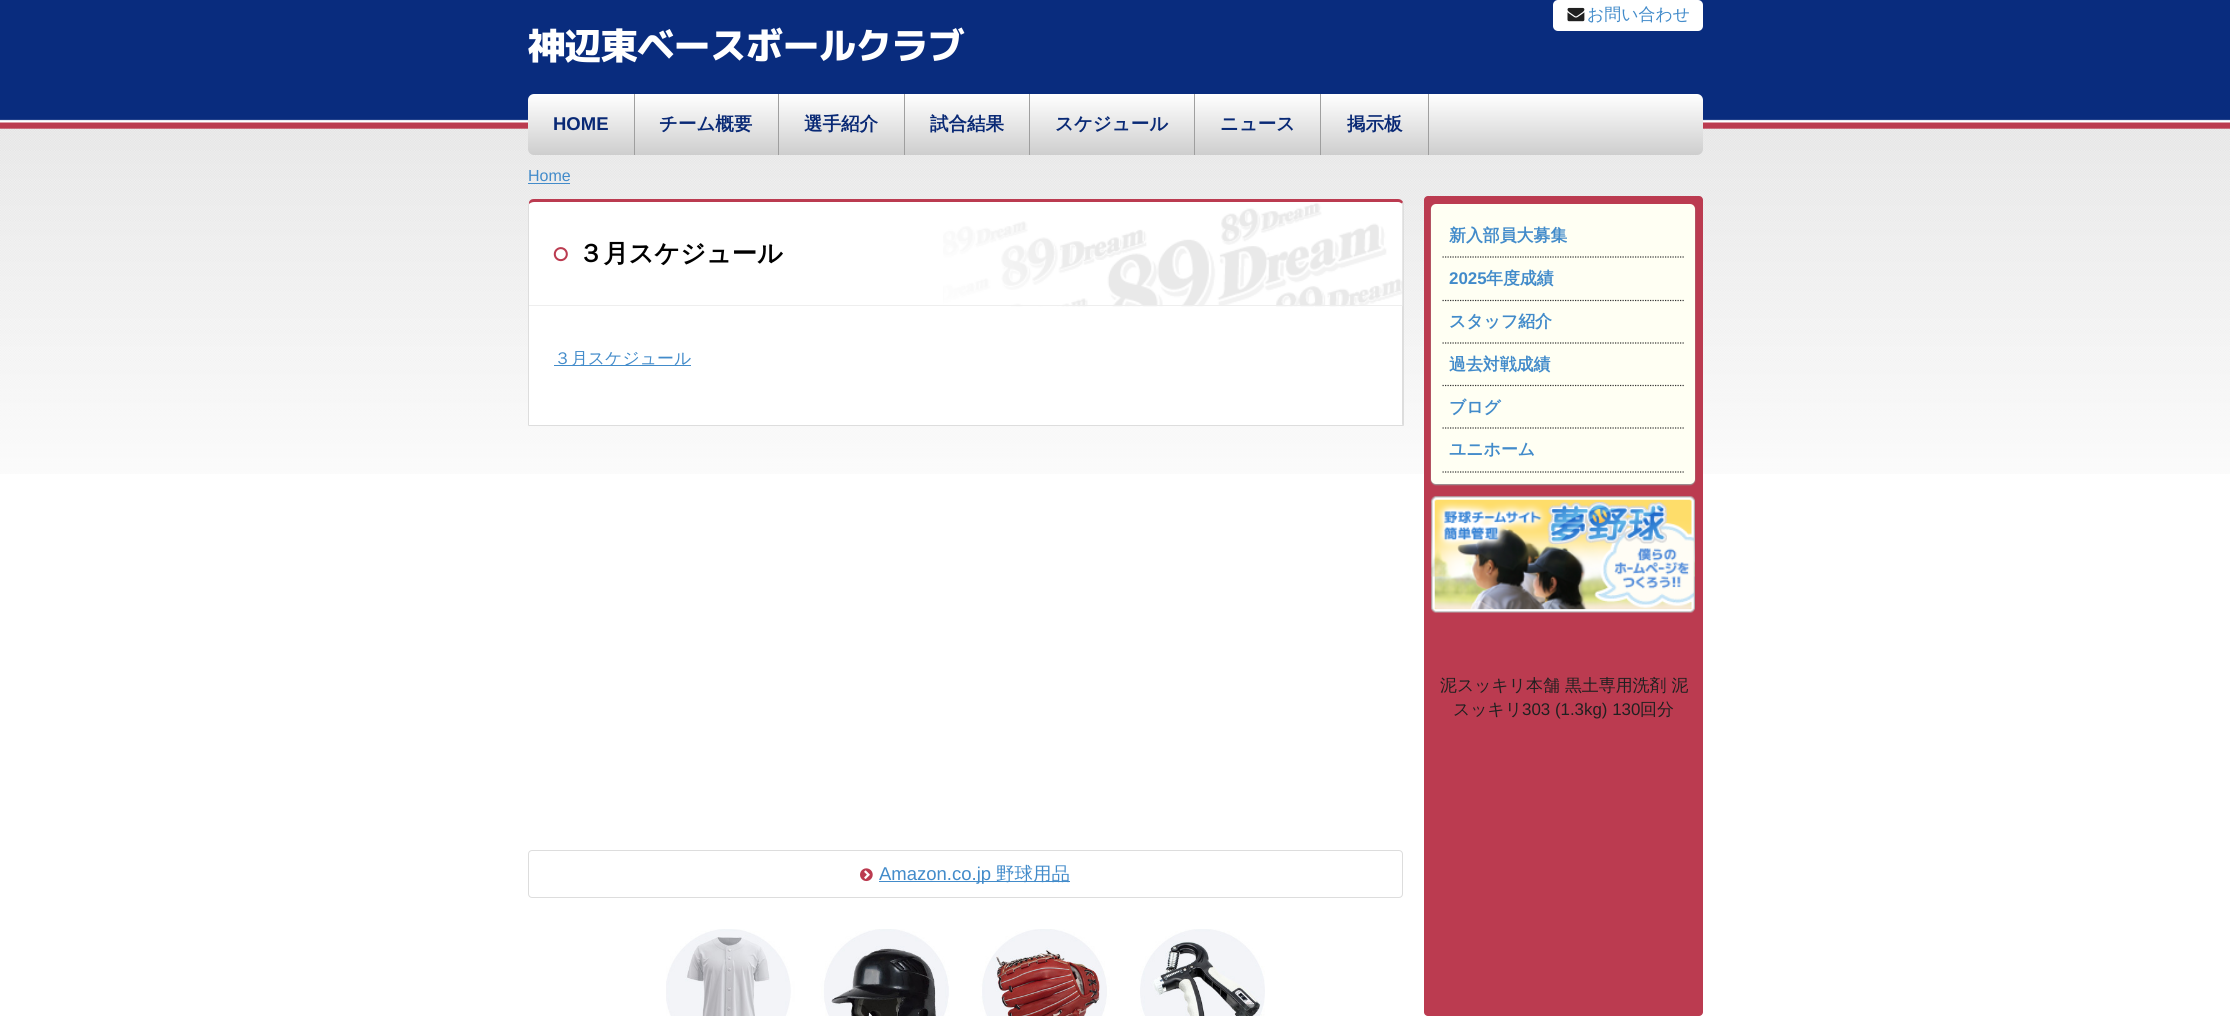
#include <cairo.h>
#include <math.h>
#include <stddef.h>

typedef struct { const char *family; double size; int italic, bold; unsigned color; } style_t;
static cairo_t *ctx;

static void ink(unsigned color) {
    cairo_set_source_rgb(ctx, (color >> 16) / 255.0, (color >> 8 & 255) / 255.0, (color & 255) / 255.0);
}

static void write(double x, double y, const char *s, const style_t *st) {
    cairo_select_font_face(ctx, st->family, st->italic ? CAIRO_FONT_SLANT_ITALIC : CAIRO_FONT_SLANT_NORMAL,
        st->bold ? CAIRO_FONT_WEIGHT_BOLD : CAIRO_FONT_WEIGHT_NORMAL);
    cairo_set_font_size(ctx, st->size);
    ink(st->color);
    cairo_move_to(ctx, x, y);
    cairo_show_text(ctx, s);
}

static void write_spaced(double x, double y, const char *s, double letter, double word) {
    cairo_move_to(ctx, x, y);
    while (*s) {
        char ch[5] = {0};
        int n = 0;
        do ch[n++] = *s++; while ((*s & 0xC0) == 0x80);
        cairo_show_text(ctx, ch);
        cairo_rel_move_to(ctx, letter + word * (*ch == ' '), 0);
    }
}

static void block(double x, double y, double w, double h, unsigned color) {
    ink(color);
    cairo_rectangle(ctx, x, y, w, h);
    cairo_fill(ctx);
}

static void round_path(double x, double y, double w, double h, double r) {
    cairo_new_sub_path(ctx);
    cairo_arc(ctx, x + w - r, y + h - r, r, 0, M_PI / 2);
    cairo_arc(ctx, x + r, y + h - r, r, M_PI / 2, M_PI);
    cairo_arc(ctx, x + r, y + r, r, M_PI, 1.5 * M_PI);
    cairo_arc(ctx, x + w - r, y + r, r, 1.5 * M_PI, 2 * M_PI);
    cairo_close_path(ctx);
}

static void blur_box(double x, double y, double w, double h, double r, double blur, double alpha) {
    cairo_push_group_with_content(ctx, CAIRO_CONTENT_ALPHA);
    cairo_set_operator(ctx, CAIRO_OPERATOR_SOURCE);
    for (int i = 15; i >= -15 && fmin(w, h) + blur * i / 3 > 0; i -= 2) {
        double e = blur * i / 6;
        cairo_set_source_rgba(ctx, 0, 0, 0, alpha * erfc((i - 1) / 8.5) / 2);
        round_path(x - e, y - e, w + 2 * e, h + 2 * e, fmax(0, fmin(r + e + blur * .6, fmin(w, h) / 2 + e)));
        cairo_fill(ctx);
    }
    cairo_pattern_t *soft = cairo_pop_group(ctx);
    cairo_mask(ctx, soft);
    cairo_pattern_destroy(soft);
}

static void paste(const char *path, double x, double y, double w, double h) {
    cairo_surface_t *image = cairo_image_surface_create_from_png(path);
    cairo_save(ctx);
    cairo_set_source_surface(ctx, image, x, y);
    cairo_rectangle(ctx, x, y, w, h);
    cairo_fill(ctx);
    cairo_restore(ctx);
    cairo_surface_destroy(image);
}

static const style_t s1 = {"WenQuanYi Zen Hei Medium", 16.9, 0, 0, 0x428bca};
static const style_t s2 = {"Liberation Sans", 18.5, 0, 1, 0x092975};
static const style_t s3 = {"WenQuanYi Zen Hei", 18.5, 0, 1, 0x092975};
static const style_t s4 = {"Liberation Sans", 16, 0, 0, 0x428bca};
static const style_t s5 = {"WenQuanYi Zen Hei", 25.25, 0, 1, 0x000000};
static const style_t s6 = {"Liberation Sans", 18.5, 0, 0, 0x428bca};
static const style_t s7 = {"WenQuanYi Zen Hei Medium", 18.5, 0, 0, 0x428bca};
static const style_t s8 = {"WenQuanYi Zen Hei", 16.9, 0, 1, 0x428bca};
static const style_t s9 = {"Liberation Sans", 16.9, 0, 1, 0x428bca};
static const style_t s10 = {"WenQuanYi Zen Hei Medium", 16.9, 0, 0, 0x202020};
static const style_t s11 = {"Liberation Sans", 16.9, 0, 0, 0x202020};

int main(void) {
    cairo_surface_t *surface = cairo_image_surface_create(CAIRO_FORMAT_RGB24, 2230, 1016);
    ctx = cairo_create(surface);
    cairo_font_options_t *options = cairo_font_options_create();
    cairo_font_options_set_hint_metrics(options, CAIRO_HINT_METRICS_OFF);
    cairo_font_options_set_hint_style(options, CAIRO_HINT_STYLE_NONE);
    cairo_set_font_options(ctx, options);
    cairo_set_miter_limit(ctx, 4);
    cairo_pattern_t *gradient;
    ink(0xffffff);
    cairo_paint(ctx);
    paste("pic1.png", 0, 0, 2230, 474);
    ink(0xffffff);
    round_path(1553, 0, 150, 31, 5);
    cairo_fill(ctx);
    paste("pic2.png", 1567, 7, 18, 15);
    write(1587, 20, "お問い合わせ", &s1);
    cairo_select_font_face(ctx, "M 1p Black", CAIRO_FONT_SLANT_NORMAL, CAIRO_FONT_WEIGHT_NORMAL);
    cairo_set_font_size(ctx, 37.1);
    ink(0xffffff);
    write_spaced(528, 59, "神辺東ベースボールクラブ", -0.75, 0);
    gradient = cairo_pattern_create_linear(1115, 94, 1115, 155);
    cairo_pattern_add_color_stop_rgba(gradient, 0, 1, 1, 1, 1);
    cairo_pattern_add_color_stop_rgba(gradient, 1, 0.808, 0.808, 0.808, 1);
    cairo_set_source(ctx, gradient);
    cairo_pattern_destroy(gradient);
    round_path(528, 94, 1175, 61, 6);
    cairo_fill(ctx);
    block(634, 94, 1, 61, 0x9f9f9f);
    write(553, 130, "HOME", &s2);
    block(778, 94, 1, 61, 0x9f9f9f);
    write(659, 130, "チーム概要", &s3);
    block(904, 94, 1, 61, 0x9f9f9f);
    write(804, 130, "選手紹介", &s3);
    block(1029, 94, 1, 61, 0x9f9f9f);
    write(930, 130, "試合結果", &s3);
    block(1194, 94, 1, 61, 0x9f9f9f);
    write(1055, 130, "スケジュール", &s3);
    block(1320, 94, 1, 61, 0x9f9f9f);
    write(1220, 130, "ニュース", &s3);
    block(1428, 94, 1, 61, 0x9f9f9f);
    write(1347, 130, "掲示板", &s3);
    write(528, 181, "Home", &s4);
    block(528, 183, 42, 1, 0x428bca);
    ink(0xffffff);
    cairo_new_path(ctx);
    cairo_move_to(ctx, 534, 202);
    cairo_line_to(ctx, 1398, 202);
    cairo_curve_to(ctx, 1400, 202, 1402, 204, 1402, 205);
    cairo_line_to(ctx, 1402, 425);
    cairo_line_to(ctx, 529, 425);
    cairo_line_to(ctx, 529, 205);
    cairo_curve_to(ctx, 529, 204, 531, 202, 534, 202);
    cairo_close_path(ctx);
    cairo_fill(ctx);
    ink(0xbb3b50);
    cairo_new_path(ctx);
    cairo_move_to(ctx, 534, 199);
    cairo_curve_to(ctx, 531, 199, 530, 200, 529, 202);
    cairo_line_to(ctx, 529, 204);
    cairo_curve_to(ctx, 530, 203, 532, 202, 534, 202);
    cairo_line_to(ctx, 1398, 202);
    cairo_curve_to(ctx, 1400, 202, 1401, 203, 1402, 204);
    cairo_line_to(ctx, 1403, 202);
    cairo_curve_to(ctx, 1402, 200, 1400, 199, 1398, 199);
    cairo_close_path(ctx);
    cairo_fill(ctx);
    ink(0xdddddd);
    cairo_new_path(ctx);
    cairo_move_to(ctx, 1404, 426);
    cairo_line_to(ctx, 1402, 424);
    cairo_line_to(ctx, 1402, 204);
    cairo_line_to(ctx, 1403, 202);
    cairo_line_to(ctx, 1404, 203);
    cairo_close_path(ctx);
    cairo_fill(ctx);
    cairo_new_path(ctx);
    cairo_move_to(ctx, 1404, 426);
    cairo_line_to(ctx, 528, 426);
    cairo_line_to(ctx, 529, 425);
    cairo_line_to(ctx, 1402, 425);
    cairo_line_to(ctx, 1402, 424);
    cairo_close_path(ctx);
    cairo_fill(ctx);
    cairo_new_path(ctx);
    cairo_move_to(ctx, 529, 202);
    cairo_line_to(ctx, 528, 205);
    cairo_line_to(ctx, 528, 426);
    cairo_line_to(ctx, 529, 425);
    cairo_line_to(ctx, 529, 204);
    cairo_close_path(ctx);
    cairo_fill(ctx);
    paste("pic3.png", 943, 202, 460, 105);
    block(529, 305, 873, 1, 0xeeeeee);
    paste("pic4.png", 553, 247, 15, 15);
    write(578, 262, "３月スケジュール", &s5);
    block(554, 365, 137, 1, 0x428bca);
    write(554, 364, "３月スケジュール", &s1);
    round_path(528.5, 850.5, 874, 47, 3.5);
    ink(0xdddddd);
    cairo_set_line_width(ctx, 1);
    cairo_stroke(ctx);
    paste("pic5.png", 860, 868, 13, 14);
    block(879, 881, 191, 1, 0x428bca);
    write(879, 880, "Amazon.co.jp", &s6);
    write(996, 880, "野球用品", &s7);
    paste("pic6.png", 666, 929, 599, 87);
    ink(0xbb3b50);
    round_path(1424, 196, 279, 820, 4);
    cairo_fill(ctx);
    ink(0x999999);
    blur_box(1431, 205, 264, 280, 5, 0.5, 1);
    ink(0xfffff3);
    round_path(1431, 204, 264, 280, 5);
    cairo_fill(ctx);
    cairo_new_path(ctx);
    cairo_move_to(ctx, 1442.5, 257);
    cairo_line_to(ctx, 1684, 257);
    ink(0x333333);
    cairo_set_line_width(ctx, 1.2);
    cairo_set_dash(ctx, (double[]){1.25, 1.25}, 2, 0);
    cairo_stroke(ctx);
    write(1449, 241, "新入部員大募集", &s8);
    cairo_new_path(ctx);
    cairo_move_to(ctx, 1442.5, 300.5);
    cairo_line_to(ctx, 1684, 300.5);
    ink(0x333333);
    cairo_stroke(ctx);
    write(1449, 284, "2025", &s9);
    write(1486, 284, "年度成績", &s8);
    cairo_new_path(ctx);
    cairo_move_to(ctx, 1442.5, 343);
    cairo_line_to(ctx, 1684, 343);
    ink(0x333333);
    cairo_stroke(ctx);
    write(1449, 327, "スタッフ紹介", &s8);
    cairo_new_path(ctx);
    cairo_move_to(ctx, 1442.5, 385.5);
    cairo_line_to(ctx, 1684, 385.5);
    ink(0x333333);
    cairo_stroke(ctx);
    write(1449, 370, "過去対戦成績", &s8);
    cairo_new_path(ctx);
    cairo_move_to(ctx, 1442.5, 428);
    cairo_line_to(ctx, 1684, 428);
    ink(0x333333);
    cairo_stroke(ctx);
    write(1449, 413, "ブログ", &s8);
    cairo_new_path(ctx);
    cairo_move_to(ctx, 1442.5, 472);
    cairo_line_to(ctx, 1684, 472);
    ink(0x333333);
    cairo_stroke(ctx);
    write(1449, 455, "ユニホーム", &s8);
    paste("pic7.png", 1431, 496, 264, 117);
    write(1440, 691, "泥スッキリ本舗 黒土専用洗剤 泥", &s10);
    write(1453, 715, "スッキリ", &s10);
    write(1522, 715, "303 (1.3kg) 130", &s11);
    write(1640, 715, "回分", &s10);
    cairo_surface_write_to_png(surface, "screenshot.png");
    cairo_font_options_destroy(options);
    cairo_destroy(ctx);
    cairo_surface_destroy(surface);
    return 0;
}
